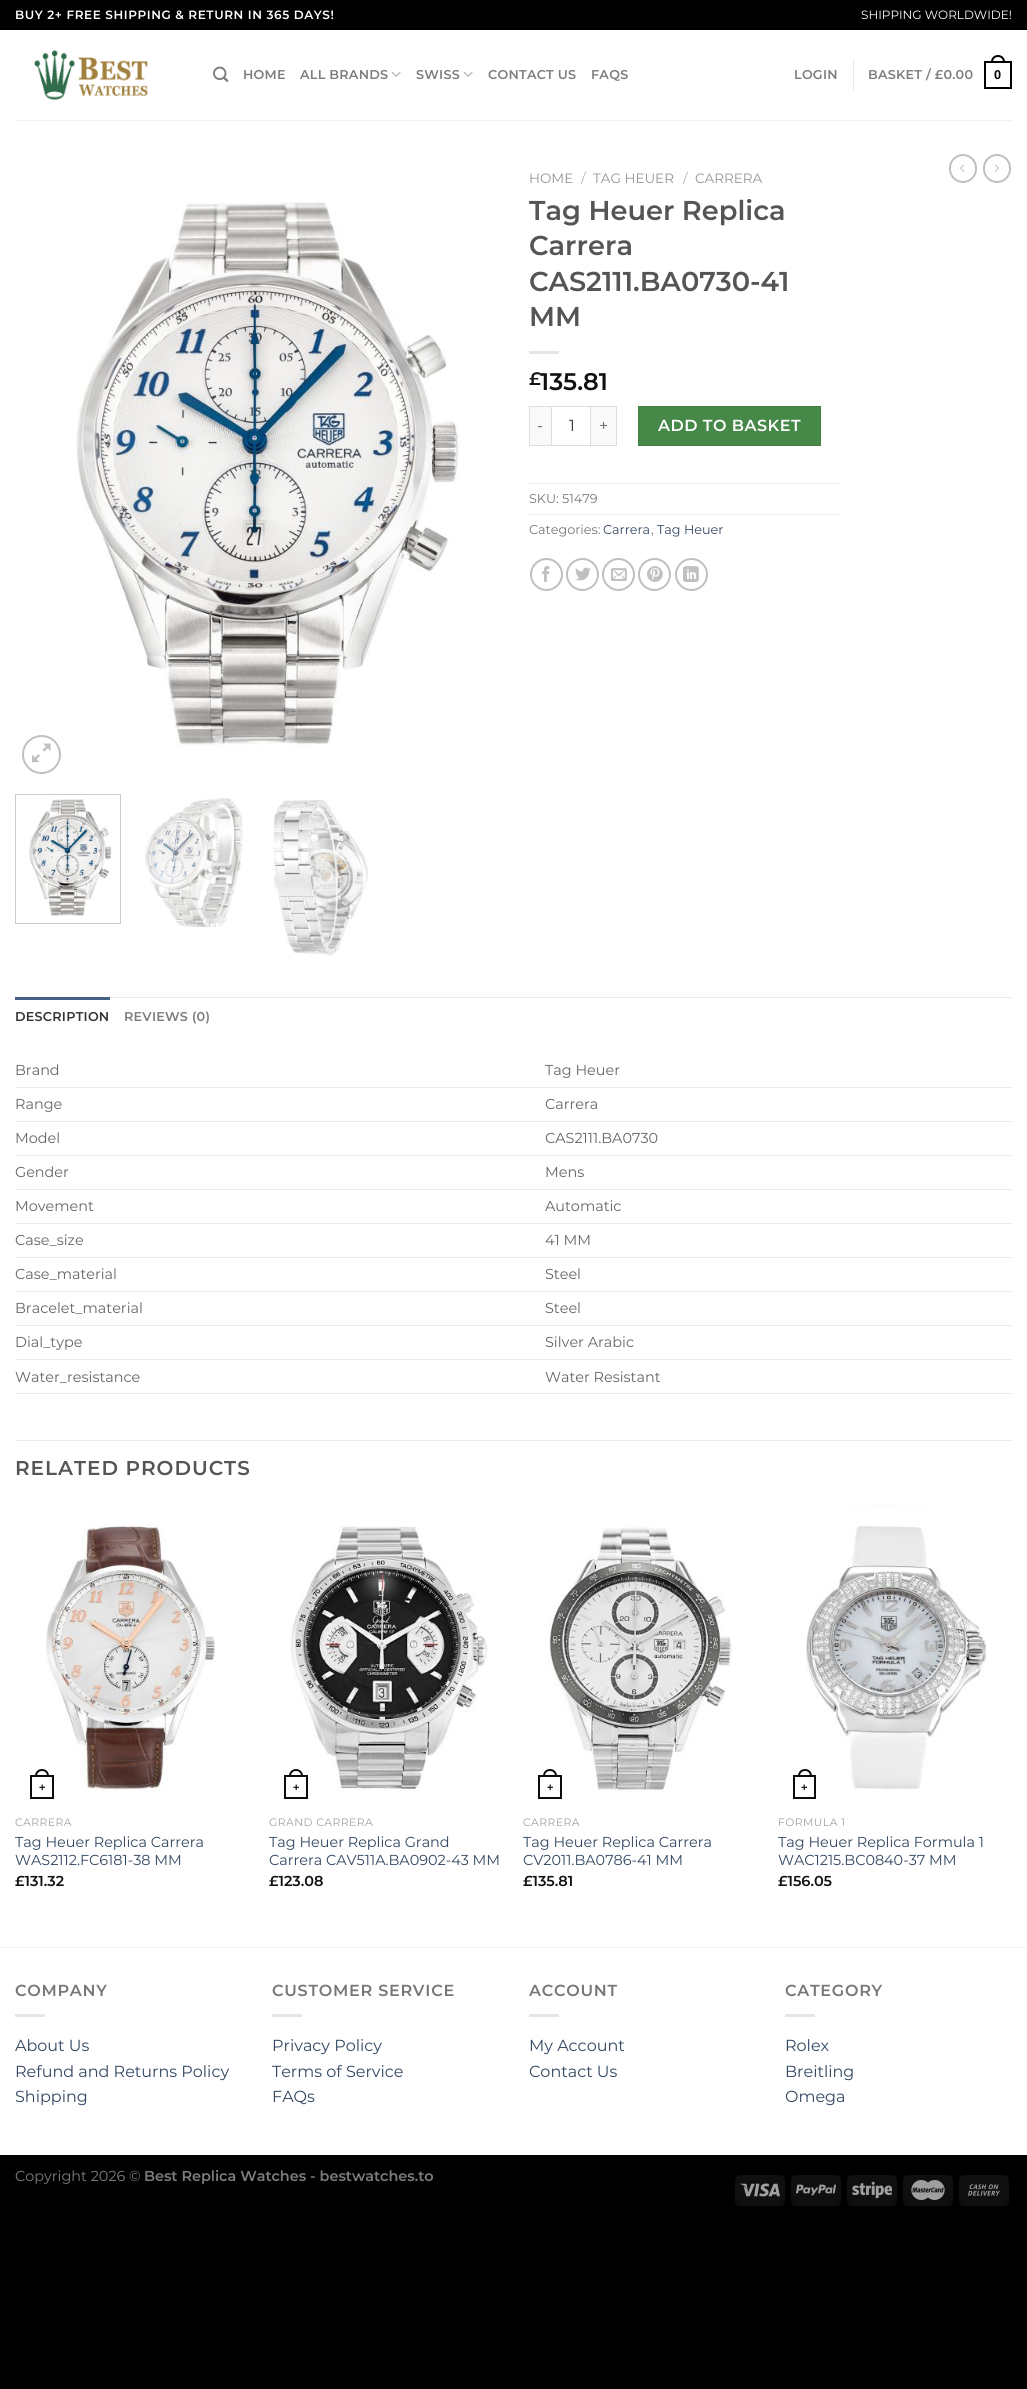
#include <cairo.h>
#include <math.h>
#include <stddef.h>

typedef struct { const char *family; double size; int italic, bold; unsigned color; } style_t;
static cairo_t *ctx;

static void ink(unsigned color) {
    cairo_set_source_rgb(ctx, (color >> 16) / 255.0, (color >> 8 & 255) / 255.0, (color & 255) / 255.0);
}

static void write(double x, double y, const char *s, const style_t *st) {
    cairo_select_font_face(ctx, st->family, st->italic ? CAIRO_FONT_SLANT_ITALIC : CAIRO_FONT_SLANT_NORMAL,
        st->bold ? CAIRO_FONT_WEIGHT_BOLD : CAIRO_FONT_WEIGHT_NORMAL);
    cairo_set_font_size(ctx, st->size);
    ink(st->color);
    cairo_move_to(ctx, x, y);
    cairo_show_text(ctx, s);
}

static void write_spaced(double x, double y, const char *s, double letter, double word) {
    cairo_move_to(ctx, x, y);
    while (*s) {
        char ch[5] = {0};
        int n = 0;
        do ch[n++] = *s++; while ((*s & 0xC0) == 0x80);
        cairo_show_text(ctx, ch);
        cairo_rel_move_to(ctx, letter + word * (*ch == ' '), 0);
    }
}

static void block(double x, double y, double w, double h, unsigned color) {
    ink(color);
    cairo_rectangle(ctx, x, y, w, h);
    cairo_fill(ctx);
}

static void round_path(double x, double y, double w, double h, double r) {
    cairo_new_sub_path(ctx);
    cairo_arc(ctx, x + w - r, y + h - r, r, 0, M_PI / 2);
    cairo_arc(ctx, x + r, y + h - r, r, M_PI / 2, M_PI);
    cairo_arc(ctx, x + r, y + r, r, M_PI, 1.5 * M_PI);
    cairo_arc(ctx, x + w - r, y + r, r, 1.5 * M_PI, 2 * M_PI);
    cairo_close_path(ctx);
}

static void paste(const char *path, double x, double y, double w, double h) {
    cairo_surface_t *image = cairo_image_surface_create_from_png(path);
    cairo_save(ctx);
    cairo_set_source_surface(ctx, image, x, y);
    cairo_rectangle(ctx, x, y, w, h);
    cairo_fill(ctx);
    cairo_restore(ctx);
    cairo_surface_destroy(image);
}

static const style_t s1 = {"Montserrat", 12, 0, 0, 0xffffff};
static const style_t s2 = {"Montserrat", 13.5, 0, 0, 0x949494};
static const style_t s3 = {"Montserrat", 13.5, 0, 0, 0xb2b2b2};
static const style_t s4 = {"Montserrat SemiBold", 27.25, 0, 0, 0x555555};
static const style_t s5 = {"Montserrat SemiBold", 18, 0, 0, 0x111111};
static const style_t s6 = {"Montserrat SemiBold", 24, 0, 0, 0x111111};
static const style_t s7 = {"Montserrat", 16, 0, 0, 0x666666};
static const style_t s8 = {"Montserrat", 16, 0, 0, 0x333333};
static const style_t s9 = {"Montserrat", 12.75, 0, 0, 0x777777};
static const style_t s10 = {"Montserrat", 12.75, 0, 0, 0x334862};
static const style_t s11 = {"Montserrat", 14.4, 0, 0, 0x666666};
static const style_t s12 = {"Liberation Sans", 11, 0, 1, 0x111111};
static const style_t s13 = {"Montserrat", 14.4, 0, 0, 0x334862};
static const style_t s14 = {"Montserrat SemiBold", 14.4, 0, 0, 0x111111};
static const style_t s15 = {"Montserrat", 16, 0, 0, 0x334862};
static const style_t s16 = {"Montserrat", 14.4, 0, 0, 0x7d7d7d};
static const style_t s17 = {"Montserrat SemiBold", 14.4, 0, 0, 0x7d7d7d};

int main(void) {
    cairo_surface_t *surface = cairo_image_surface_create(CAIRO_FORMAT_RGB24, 1027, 2389);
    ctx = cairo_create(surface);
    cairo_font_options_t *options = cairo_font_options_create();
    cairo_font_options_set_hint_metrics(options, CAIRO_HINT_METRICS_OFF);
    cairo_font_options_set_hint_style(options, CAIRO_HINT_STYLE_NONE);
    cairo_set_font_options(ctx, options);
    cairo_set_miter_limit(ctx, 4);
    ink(0x000000);
    cairo_paint(ctx);
    block(0, 30, 1027, 2125, 0xffffff);
    cairo_select_font_face(ctx, "Montserrat SemiBold", CAIRO_FONT_SLANT_NORMAL, CAIRO_FONT_WEIGHT_NORMAL);
    cairo_set_font_size(ctx, 12);
    write_spaced(15, 19, "BUY 2+ FREE SHIPPING & RETURN IN 365 DAYS!", 0.6, 0);
    write(861, 19, "SHIPPING WORLDWIDE!", &s1);
    paste("pic1.png", 34, 49, 114, 52);
    paste("pic2.png", 213, 66, 16, 16);
    cairo_select_font_face(ctx, "Montserrat SemiBold", CAIRO_FONT_SLANT_NORMAL, CAIRO_FONT_WEIGHT_NORMAL);
    cairo_set_font_size(ctx, 12.75);
    ink(0x7d7d7d);
    write_spaced(243, 79, "HOME", 0.25, 0);
    write_spaced(300, 79, "ALL BRANDS", 0.25, 0);
    paste("pic3.png", 391, 71, 10, 6);
    write_spaced(416, 79, "SWISS", 0.25, 0);
    paste("pic3.png", 463, 71, 10, 6);
    write_spaced(488, 79, "CONTACT US", 0.25, 0);
    write_spaced(591, 79, "FAQS", 0.25, 0);
    write_spaced(794, 79, "LOGIN", 0.25, 0);
    block(853, 60, 1, 30, 0xe6e6e6);
    ink(0x7d7d7d);
    write_spaced(868, 79, "BASKET / £0.00", 0.25, 0);
    cairo_rectangle(ctx, 985, 62, 26, 26);
    ink(0x000000);
    cairo_stroke(ctx);
    cairo_new_path(ctx);
    cairo_move_to(ctx, 998, 56);
    cairo_curve_to(ctx, 1001.5, 56, 1004, 58.5, 1004, 62);
    cairo_line_to(ctx, 992, 62);
    cairo_curve_to(ctx, 992, 58.5, 994.5, 56, 998, 56);
    cairo_close_path(ctx);
    cairo_stroke(ctx);
    cairo_select_font_face(ctx, "Liberation Sans", CAIRO_FONT_SLANT_NORMAL, CAIRO_FONT_WEIGHT_BOLD);
    write_spaced(994, 79, "0", 0.25, 0);
    block(15, 120, 997, 1, 0xf1f1f1);
    paste("pic4.png", 76, 202, 384, 544);
    cairo_arc(ctx, 41.5, 754.5, 18.5, 0, 2 * M_PI);
    ink(0xc0c0c0);
    cairo_stroke(ctx);
    paste("pic5.png", 32, 743, 19, 20);
    cairo_rectangle(ctx, 15.5, 794.5, 105, 129);
    ink(0xcccccc);
    cairo_set_line_width(ctx, 1);
    cairo_stroke(ctx);
    paste("pic6.png", 29, 799, 83, 117);
    paste("pic7.png", 145, 798, 98, 129);
    paste("pic8.png", 273, 799, 95, 157);
    write(529, 183, "HOME", &s2);
    write(581, 183, "/", &s3);
    write(593, 183, "TAG HEUER", &s2);
    write(683, 183, "/", &s3);
    write(695, 183, "CARRERA", &s2);
    write(529, 220, "Tag Heuer Replica", &s4);
    write(529, 255, "Carrera", &s4);
    write(529, 291, "CAS2111.BA0730-41", &s4);
    write(529, 326, "MM", &s4);
    block(529, 351, 30, 3, 0xe6e6e6);
    write(529, 385, "£", &s5);
    write(540, 390, "135.81", &s6);
    block(530, 407, 21, 38, 0xf9f9f9);
    block(529, 406, 22, 1, 0xdddddd);
    block(529, 445, 22, 1, 0xdddddd);
    block(529, 406, 1, 40, 0xdddddd);
    write(537, 431, "-", &s7);
    cairo_rectangle(ctx, 551.5, 406.5, 39, 39);
    ink(0xdddddd);
    cairo_stroke(ctx);
    write(569, 431, "1", &s8);
    block(591, 407, 25, 38, 0xf9f9f9);
    block(591, 406, 26, 1, 0xdddddd);
    block(616, 406, 1, 40, 0xdddddd);
    block(591, 445, 26, 1, 0xdddddd);
    write(599, 431, "+", &s7);
    ink(0x468847);
    cairo_rectangle(ctx, 638.5, 406.5, 182, 39);
    cairo_fill_preserve(ctx);
    ink(0x438143);
    cairo_stroke(ctx);
    cairo_select_font_face(ctx, "Montserrat SemiBold", CAIRO_FONT_SLANT_NORMAL, CAIRO_FONT_WEIGHT_NORMAL);
    ink(0xffffff);
    write_spaced(658, 431, "ADD TO BASKET", 0.5, 0);
    cairo_new_path(ctx);
    cairo_move_to(ctx, 529, 483.5);
    cairo_line_to(ctx, 841, 483.5);
    ink(0xdddddd);
    cairo_set_dash(ctx, (double[]){1, 1}, 2, 0);
    cairo_stroke(ctx);
    write(529, 503, "SKU: 51479", &s9);
    cairo_new_path(ctx);
    cairo_move_to(ctx, 529, 514.5);
    cairo_line_to(ctx, 841, 514.5);
    ink(0xdddddd);
    cairo_stroke(ctx);
    write(529, 534, "Categories:", &s9);
    write(603, 534, "Carrera", &s10);
    write(651, 534, ",", &s9);
    write(657, 534, "Tag Heuer", &s10);
    cairo_new_path(ctx);
    cairo_arc(ctx, 546.5, 574.5, 15.5, 0, 2 * M_PI);
    ink(0xc0c0c0);
    cairo_set_line_width(ctx, 2);
    cairo_set_dash(ctx, NULL, 0, 0);
    cairo_stroke(ctx);
    paste("pic9.png", 542, 566, 8, 16);
    cairo_arc(ctx, 582.5, 574.5, 15.5, 0, 2 * M_PI);
    cairo_stroke(ctx);
    paste("pic10.png", 575, 567, 16, 14);
    cairo_arc(ctx, 618.5, 574.5, 15.5, 0, 2 * M_PI);
    cairo_stroke(ctx);
    paste("pic11.png", 611, 568, 16, 13);
    cairo_arc(ctx, 654.5, 574.5, 15.5, 0, 2 * M_PI);
    cairo_stroke(ctx);
    paste("pic12.png", 647, 566, 16, 16);
    cairo_arc(ctx, 691.5, 574.5, 15.5, 0, 2 * M_PI);
    cairo_stroke(ctx);
    paste("pic13.png", 683, 566, 16, 16);
    round_path(950, 155, 26, 27, 13);
    cairo_stroke(ctx);
    paste("pic14.png", 960, 164, 5, 8);
    round_path(984, 155, 26, 27, 13);
    cairo_stroke(ctx);
    paste("pic15.png", 995, 164, 4, 8);
    block(110, 997, 902, 1, 0xececec);
    block(15, 997, 95, 3, 0x446084);
    cairo_select_font_face(ctx, "Montserrat SemiBold", CAIRO_FONT_SLANT_NORMAL, CAIRO_FONT_WEIGHT_NORMAL);
    ink(0x333333);
    write_spaced(15, 1021, "DESCRIPTION", 0.25, 0);
    ink(0x7d7d7d);
    write_spaced(124, 1021, "REVIEWS (0)", 0.25, 0);
    block(15, 1087, 997, 1, 0xececec);
    write(15, 1075, "Brand", &s11);
    write(545, 1075, "Tag Heuer", &s11);
    block(15, 1121, 997, 1, 0xececec);
    write(15, 1109, "Range", &s11);
    write(545, 1109, "Carrera", &s11);
    block(15, 1155, 997, 1, 0xececec);
    write(15, 1143, "Model", &s11);
    write(545, 1143, "CAS2111.BA0730", &s11);
    block(15, 1189, 997, 1, 0xececec);
    write(15, 1177, "Gender", &s11);
    write(545, 1177, "Mens", &s11);
    block(15, 1223, 997, 1, 0xececec);
    write(15, 1211, "Movement", &s11);
    write(545, 1211, "Automatic", &s11);
    block(15, 1257, 997, 1, 0xececec);
    write(15, 1245, "Case_size", &s11);
    write(545, 1245, "41 MM", &s11);
    block(15, 1291, 997, 1, 0xececec);
    write(15, 1279, "Case_material", &s11);
    write(545, 1279, "Steel", &s11);
    block(15, 1325, 997, 1, 0xececec);
    write(15, 1313, "Bracelet_material", &s11);
    write(545, 1313, "Steel", &s11);
    block(15, 1359, 997, 1, 0xececec);
    write(15, 1347, "Dial_type", &s11);
    write(545, 1347, "Silver Arabic", &s11);
    block(15, 1393, 997, 1, 0xececec);
    write(15, 1382, "Water_resistance", &s11);
    write(545, 1382, "Water Resistant", &s11);
    block(15, 1440, 997, 1, 0xececec);
    cairo_select_font_face(ctx, "Montserrat SemiBold", CAIRO_FONT_SLANT_NORMAL, CAIRO_FONT_WEIGHT_NORMAL);
    cairo_set_font_size(ctx, 20);
    ink(0x555555);
    write_spaced(15, 1475, "RELATED PRODUCTS", 1, 0);
    paste("pic16.png", 46, 1524, 169, 269);
    cairo_rectangle(ctx, 31, 1776, 22, 22);
    ink(0x0d0d0d);
    cairo_stroke(ctx);
    cairo_new_path(ctx);
    cairo_move_to(ctx, 42, 1770);
    cairo_curve_to(ctx, 45.5, 1770, 48, 1772.5, 48, 1776);
    cairo_line_to(ctx, 36, 1776);
    cairo_curve_to(ctx, 36, 1772.5, 38.5, 1770, 42, 1770);
    cairo_close_path(ctx);
    cairo_stroke(ctx);
    write(39, 1791, "+", &s12);
    cairo_select_font_face(ctx, "Montserrat", CAIRO_FONT_SLANT_NORMAL, CAIRO_FONT_WEIGHT_NORMAL);
    cairo_set_font_size(ctx, 10.75);
    ink(0xa0a0a0);
    write_spaced(15, 1826, "CARRERA", 0.5, 0);
    write(15, 1847, "Tag Heuer Replica Carrera", &s13);
    write(15, 1865, "WAS2112.FC6181-38 MM", &s13);
    write(15, 1886, "£131.32", &s14);
    paste("pic17.png", 290, 1526, 198, 267);
    cairo_rectangle(ctx, 285, 1776, 22, 22);
    ink(0x0d0d0d);
    cairo_stroke(ctx);
    cairo_new_path(ctx);
    cairo_move_to(ctx, 296, 1770);
    cairo_curve_to(ctx, 299.5, 1770, 302, 1772.5, 302, 1776);
    cairo_line_to(ctx, 290, 1776);
    cairo_curve_to(ctx, 290, 1772.5, 292.5, 1770, 296, 1770);
    cairo_close_path(ctx);
    cairo_stroke(ctx);
    write(293, 1791, "+", &s12);
    cairo_select_font_face(ctx, "Montserrat", CAIRO_FONT_SLANT_NORMAL, CAIRO_FONT_WEIGHT_NORMAL);
    cairo_set_font_size(ctx, 10.75);
    ink(0xa0a0a0);
    write_spaced(269, 1826, "GRAND CARRERA", 0.5, 0);
    write(269, 1847, "Tag Heuer Replica Grand", &s13);
    write(269, 1865, "Carrera CAV511A.BA0902-43 MM", &s13);
    write(269, 1886, "£123.08", &s14);
    paste("pic18.png", 548, 1527, 185, 266);
    cairo_rectangle(ctx, 539, 1776, 22, 22);
    ink(0x0d0d0d);
    cairo_stroke(ctx);
    cairo_new_path(ctx);
    cairo_move_to(ctx, 550, 1770);
    cairo_curve_to(ctx, 553.5, 1770, 556, 1772.5, 556, 1776);
    cairo_line_to(ctx, 544, 1776);
    cairo_curve_to(ctx, 544, 1772.5, 546.5, 1770, 550, 1770);
    cairo_close_path(ctx);
    cairo_stroke(ctx);
    write(547, 1791, "+", &s12);
    cairo_select_font_face(ctx, "Montserrat", CAIRO_FONT_SLANT_NORMAL, CAIRO_FONT_WEIGHT_NORMAL);
    cairo_set_font_size(ctx, 10.75);
    ink(0xa0a0a0);
    write_spaced(523, 1826, "CARRERA", 0.5, 0);
    write(523, 1847, "Tag Heuer Replica Carrera", &s13);
    write(523, 1865, "CV2011.BA0786-41 MM", &s13);
    write(523, 1886, "£135.81", &s14);
    paste("pic19.png", 806, 1505, 182, 284);
    cairo_rectangle(ctx, 794, 1776, 21, 22);
    ink(0x0d0d0d);
    cairo_stroke(ctx);
    cairo_new_path(ctx);
    cairo_move_to(ctx, 805, 1770);
    cairo_curve_to(ctx, 808.5, 1770, 811, 1772.5, 811, 1776);
    cairo_line_to(ctx, 799, 1776);
    cairo_curve_to(ctx, 799, 1772.5, 801.5, 1770, 805, 1770);
    cairo_close_path(ctx);
    cairo_stroke(ctx);
    write(801, 1791, "+", &s12);
    cairo_select_font_face(ctx, "Montserrat", CAIRO_FONT_SLANT_NORMAL, CAIRO_FONT_WEIGHT_NORMAL);
    cairo_set_font_size(ctx, 10.75);
    ink(0xa0a0a0);
    write_spaced(778, 1826, "FORMULA 1", 0.5, 0);
    write(778, 1847, "Tag Heuer Replica Formula 1", &s13);
    write(778, 1865, "WAC1215.BC0840-37 MM", &s13);
    write(778, 1886, "£156.05", &s14);
    block(0, 1947, 1027, 1, 0xf2f2f2);
    cairo_set_font_size(ctx, 16);
    ink(0x777777);
    write_spaced(15, 1996, "COMPANY", 0.75, 0);
    block(15, 2014, 30, 3, 0xe6e6e6);
    write(15, 2051, "About Us", &s15);
    write(15, 2077, "Refund and Returns Policy", &s15);
    write(15, 2102, "Shipping", &s15);
    cairo_select_font_face(ctx, "Montserrat SemiBold", CAIRO_FONT_SLANT_NORMAL, CAIRO_FONT_WEIGHT_NORMAL);
    ink(0x777777);
    write_spaced(272, 1996, "CUSTOMER SERVICE", 0.75, 0);
    block(272, 2014, 30, 3, 0xe6e6e6);
    write(272, 2051, "Privacy Policy", &s15);
    write(272, 2077, "Terms of Service", &s15);
    write(272, 2102, "FAQs", &s15);
    cairo_select_font_face(ctx, "Montserrat SemiBold", CAIRO_FONT_SLANT_NORMAL, CAIRO_FONT_WEIGHT_NORMAL);
    ink(0x777777);
    write_spaced(529, 1996, "ACCOUNT", 0.75, 0);
    block(529, 2014, 30, 3, 0xe6e6e6);
    write(529, 2051, "My Account", &s15);
    write(529, 2077, "Contact Us", &s15);
    cairo_select_font_face(ctx, "Montserrat SemiBold", CAIRO_FONT_SLANT_NORMAL, CAIRO_FONT_WEIGHT_NORMAL);
    ink(0x777777);
    write_spaced(785, 1996, "CATEGORY", 0.75, 0);
    block(785, 2014, 30, 3, 0xe6e6e6);
    write(785, 2051, "Rolex", &s15);
    write(785, 2077, "Breitling", &s15);
    write(785, 2102, "Omega", &s15);
    write(15, 2181, "Copyright 2026 ©", &s16);
    write(144, 2181, "Best Replica Watches - bestwatches.to", &s17);
    ink(0x0f0f0f);
    round_path(735, 2175, 50, 31, 5);
    cairo_fill(ctx);
    paste("pic20.png", 740, 2183, 40, 14);
    round_path(791, 2175, 50, 31, 5);
    cairo_fill(ctx);
    paste("pic21.png", 796, 2184, 40, 12);
    round_path(847, 2175, 50, 31, 5);
    cairo_fill(ctx);
    paste("pic22.png", 852, 2181, 40, 18);
    round_path(903, 2175, 50, 31, 5);
    cairo_fill(ctx);
    paste("pic23.png", 911, 2180, 34, 20);
    round_path(959, 2175, 50, 31, 5);
    cairo_fill(ctx);
    paste("pic24.png", 968, 2184, 32, 12);
    cairo_surface_write_to_png(surface, "screenshot.png");
    cairo_font_options_destroy(options);
    cairo_destroy(ctx);
    cairo_surface_destroy(surface);
    return 0;
}
